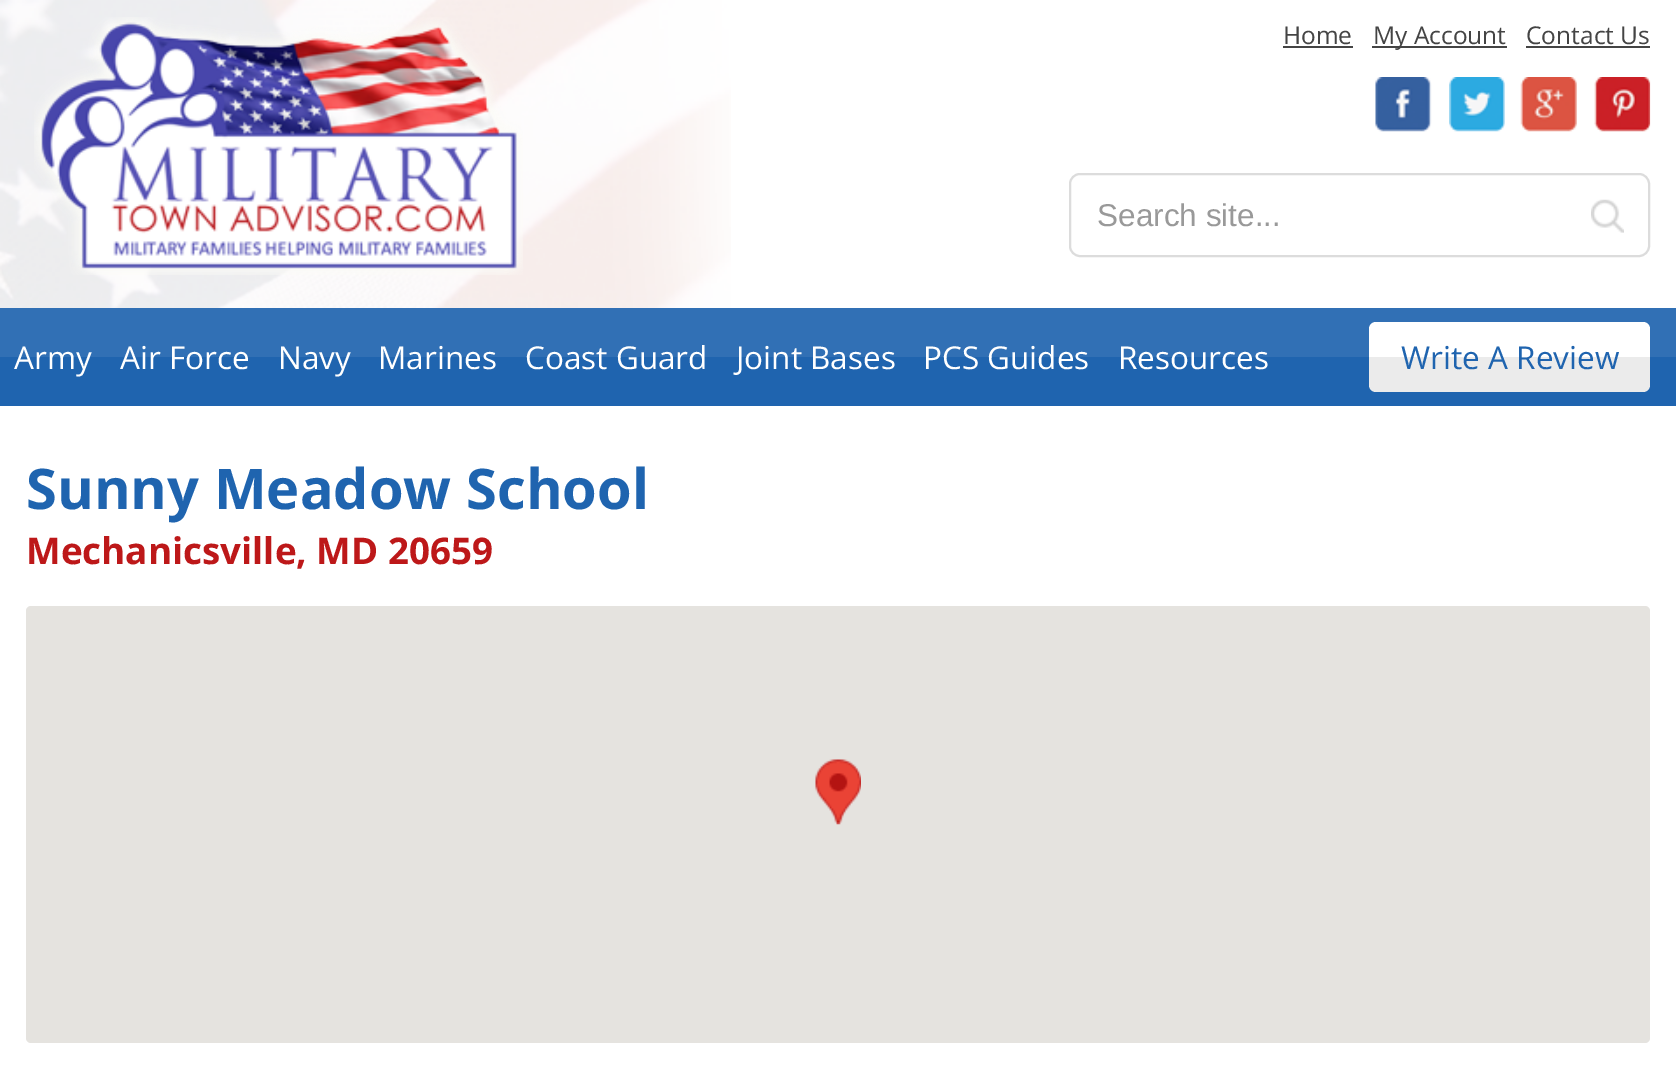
%!PS
<< /PageSize [1676 1072] >> setpagedevice
/mt/moveto load def
/li/lineto load def
/ct/curveto load def
/cp/closepath load def
/fl/fill load def
/st/stroke load def
/lw/setlinewidth load def
/co { dup -16 bitshift 255 div exch dup -8 bitshift 255 and 255 div exch 255 and 255 div setrgbcolor } def
/fn { [ exch dup neg 0 0 3 -1 roll 0 0 ] selectfont } def
/tx { co fn moveto show } def
/bx { co rectfill } def
/rr { 5 dict begin { /r /h /w /y /x } { exch def } forall
  x r add y moveto x w add y 2 copy h add r arct x w add y h add x 1 index r arct
  x y h add x y r arct x y 2 copy exch w add exch r arct closepath end } def
/im { 5 dict begin { /h /w /y /x /name } { exch def } forall
  gsave x y translate w h scale
  w h 8 [w 0 0 h 0 0] name (r) file false 3 colorimage grestore end } def
0 1072 translate 1 -1 scale
4 setmiterlimit
0 0 1676 1072 16#FFFFFF bx
(media/1.raw) 0 0 731 308 im
(media/2.raw) 34 17 489 258 im
1283 46 70 2 16#444444 bx
1372 46 135 2 16#444444 bx
1526 46 124 2 16#444444 bx
(media/3.raw) 1375 77 57 55 im
(media/4.raw) 1449 77 56 55 im
(media/5.raw) 1520 77 57 55 im
(media/6.raw) 1594 77 57 55 im
16#DCDCDC co
2 lw
1070 174 579 82 10 rr st
(media/7.raw) 1591 199 33 34 im
0 308 1676 49 16#3170B5 bx
0 357 1676 49 16#1F64AF bx
16#FFFFFF co
1376 322 mt 1643 322 li 1647 322 1650 325 1650 329 ct 1650 357 li 1369 357 li 1369 329 li 1369 325 1372 322 1376 322 ct cp fl
16#EBEBEB co
1369 357 mt 1650 357 li 1650 385 li 1650 389 1647 392 1643 392 ct 1376 392 li 1372 392 1369 389 1369 385 ct cp fl
16#E5E3DF co
26 606 1624 437 5 rr fl
(media/8.raw) 815 759 46 66 im
(Home) 1283 44 /OpenSans-Regular 24.5 16#444444 tx
(My Account) 1373 44 /OpenSans-Regular 24.5 16#444444 tx
(Contact Us) 1526 44 /OpenSans-Regular 24.5 16#444444 tx
(Search site...) 1097 226 /LiberationSans-Regular 31.5 16#999999 tx
(Army) 14 369 /OpenSans-Regular 31.5 16#FFFFFF tx
(Air Force) 120 369 /OpenSans-Regular 31.5 16#FFFFFF tx
(Navy) 278 369 /OpenSans-Regular 31.5 16#FFFFFF tx
(Marines) 378 369 /OpenSans-Regular 31.5 16#FFFFFF tx
(Coast Guard) 525 369 /OpenSans-Regular 31.5 16#FFFFFF tx
(Joint Bases) 736 369 /OpenSans-Regular 31.5 16#FFFFFF tx
(PCS Guides) 923 369 /OpenSans-Regular 31.5 16#FFFFFF tx
(Resources) 1118 369 /OpenSans-Regular 31.5 16#FFFFFF tx
(Write A Review) 1401 369 /OpenSans-Regular 31.5 16#1F64AF tx
(Sunny Meadow School) 26 509 /OpenSans-Bold 56 16#1F64AF tx
(Mechanicsville, MD 20659) 26 564 /OpenSans-Bold 36.75 16#BD1819 tx
showpage
